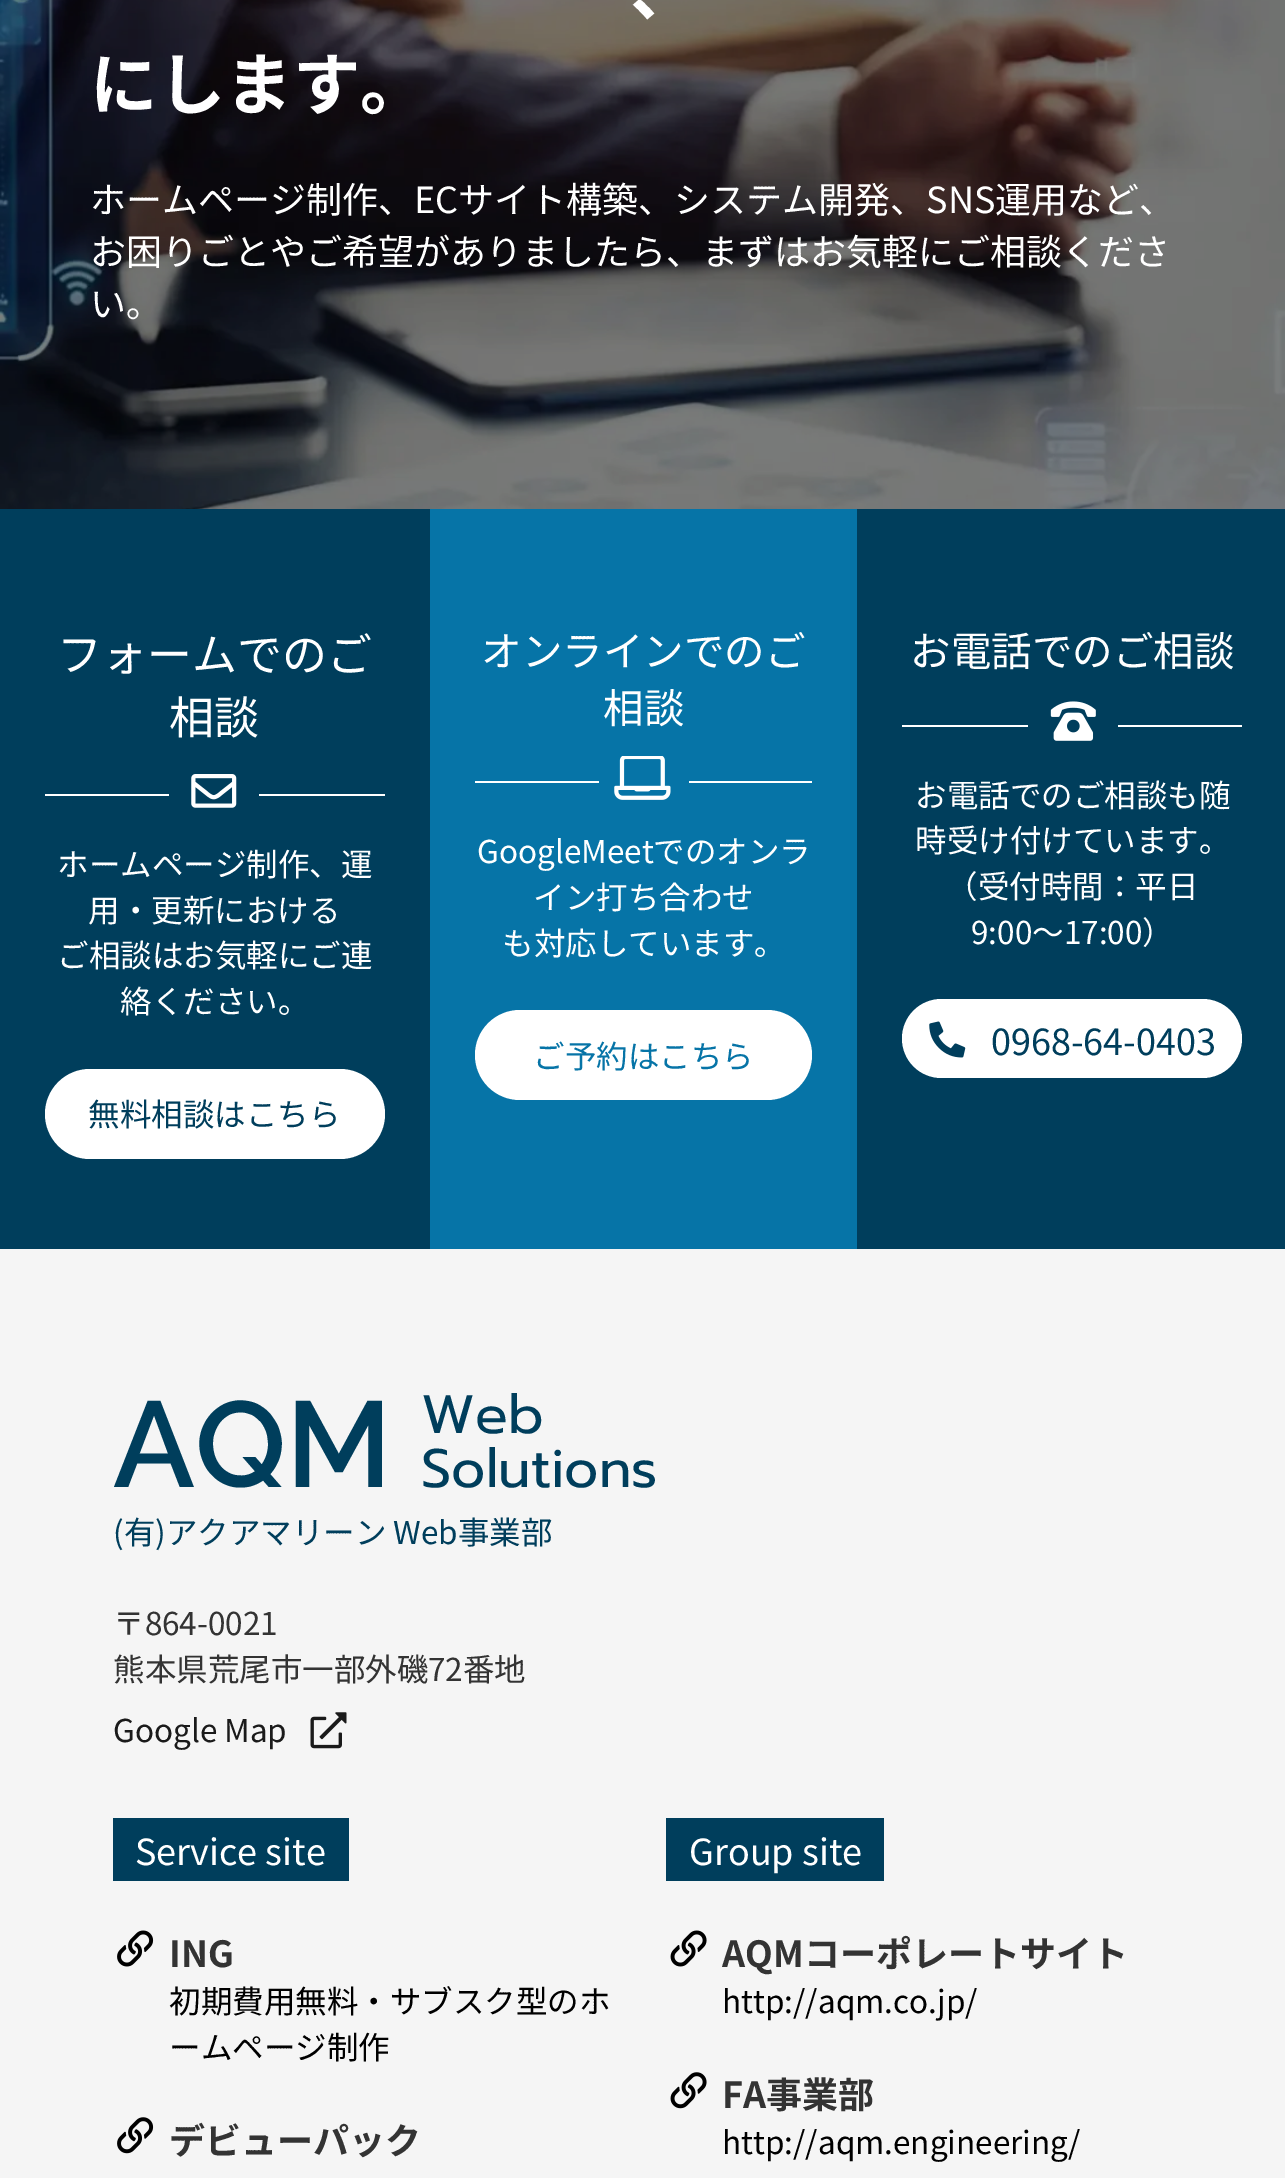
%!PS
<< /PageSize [1285 2178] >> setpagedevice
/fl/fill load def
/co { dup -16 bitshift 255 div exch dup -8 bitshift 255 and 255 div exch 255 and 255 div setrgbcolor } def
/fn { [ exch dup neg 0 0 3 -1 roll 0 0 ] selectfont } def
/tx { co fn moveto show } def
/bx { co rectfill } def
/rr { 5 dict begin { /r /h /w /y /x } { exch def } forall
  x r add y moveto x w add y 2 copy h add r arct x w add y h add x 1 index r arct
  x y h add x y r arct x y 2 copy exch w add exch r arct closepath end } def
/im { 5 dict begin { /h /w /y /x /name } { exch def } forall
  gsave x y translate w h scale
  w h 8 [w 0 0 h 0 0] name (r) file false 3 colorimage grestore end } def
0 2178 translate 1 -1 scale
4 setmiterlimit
0 0 1285 2178 16#FFFFFF bx
(media/1.raw) 0 0 1285 509 im
0 509 430 740 16#003E5C bx
45 794 124 2 16#FFFFFF bx
(media/2.raw) 191 774 46 34 im
259 794 126 2 16#FFFFFF bx
45 1069 340 90 45 rr fl
430 509 427 740 16#0674A7 bx
475 781 124 2 16#FFFFFF bx
(media/3.raw) 614 756 57 44 im
689 781 123 2 16#FFFFFF bx
475 1010 337 90 45 rr fl
857 509 428 740 16#003E5C bx
902 725 126 2 16#FFFFFF bx
(media/4.raw) 1050 701 46 40 im
1118 725 124 2 16#FFFFFF bx
902 999 340 79 39.5 rr fl
(media/5.raw) 929 1021 37 37 im
0 1249 1285 929 16#F5F5F5 bx
(media/6.raw) 310 1712 37 37 im
113 1818 236 63 16#003E5C bx
(media/7.raw) 117 1930 37 37 im
(media/8.raw) 117 2117 37 37 im
666 1818 218 63 16#003E5C bx
(media/9.raw) 670 1930 37 37 im
(media/10.raw) 670 2072 37 37 im
(、) 630 15 /NotoSansJP-Bold 67.5 16#FFFFFF tx
(にします。) 90 109 /NotoSansJP-Bold 67.5 16#FFFFFF tx
(ホームページ制作、ECサイト構築、システム開発、SNS運用など、) 90 213 /NotoSansJP-Thin 36 16#FFFFFF tx
(お困りごとやご希望がありましたら、まずはお気軽にご相談くださ) 90 265 /NotoSansJP-Thin 36 16#FFFFFF tx
(い。) 90 317 /NotoSansJP-Thin 36 16#FFFFFF tx
(フォームでのご) 57 671 /NotoSansJP-Thin 45 16#FFFFFF tx
(相談) 169 734 /NotoSansJP-Thin 45 16#FFFFFF tx
(ホームページ制作、運) 57 876 /NotoSansJP-Thin 31.5 16#FFFFFF tx
(用・更新における) 88 922 /NotoSansJP-Thin 31.5 16#FFFFFF tx
(ご相談はお気軽にご連) 57 967 /NotoSansJP-Thin 31.5 16#FFFFFF tx
(絡ください。) 120 1013 /NotoSansJP-Thin 31.5 16#FFFFFF tx
(無料相談はこちら) 88 1126 /NotoSansJP-Thin 31.5 16#003E5C tx
(オンラインでのご) 481 666 /NotoSansJP-Thin 40.5 16#FFFFFF tx
(相談) 603 723 /NotoSansJP-Thin 40.5 16#FFFFFF tx
(GoogleMeetでのオンラ) 477 863 /NotoSansJP-Thin 31.5 16#FFFFFF tx
(イン打ち合わせ) 533 909 /NotoSansJP-Thin 31.5 16#FFFFFF tx
(も対応しています。) 502 955 /NotoSansJP-Thin 31.5 16#FFFFFF tx
(ご予約はこちら) 533 1068 /NotoSansJP-Thin 31.5 16#0674A7 tx
(お電話でのご相談) 910 666 /NotoSansJP-Thin 40.5 16#FFFFFF tx
(お電話でのご相談も随) 915 807 /NotoSansJP-Thin 31.5 16#FFFFFF tx
(時受け付けています。) 915 852 /NotoSansJP-Thin 31.5 16#FFFFFF tx
(（受付時間：平日) 946 898 /NotoSansJP-Thin 31.5 16#FFFFFF tx
(9:00〜17:00）) 971 944 /NotoSansJP-Thin 31.5 16#FFFFFF tx
(0968-64-0403) 991 1055 /NotoSansJP-Thin 36 16#003E5C tx
(AQM) 113 1487 /Raleway-SemiBold 121.5 16#003E5C tx
(Web) 421 1433 /Prompt-Regular 54 16#003E5C tx
(Solutions) 421 1487 /Prompt-Regular 54 16#003E5C tx
(\(有\)アクアマリーン Web事業部) 113 1544 /NotoSansJP-Thin 31.5 16#003E5C tx
(〒864-0021) 113 1635 /NotoSansJP-Thin 31.5 16#333333 tx
(熊本県荒尾市一部外磯72番地) 113 1681 /NotoSansJP-Thin 31.5 16#333333 tx
(Google Map) 113 1742 /NotoSansJP-Thin 31.5 16#1A1A1A tx
(Service site) 135 1865 /NotoSansJP-Thin 36 16#FFFFFF tx
(ING) 169 1967 /NotoSansJP-Bold 36 16#333333 tx
(初期費用無料・サブスク型のホ) 169 2013 /NotoSansJP-Thin 31.5 16#000000 tx
(ームページ制作) 169 2059 /NotoSansJP-Thin 31.5 16#000000 tx
(デビューパック) 169 2154 /NotoSansJP-Bold 36 16#333333 tx
(Group site) 689 1865 /NotoSansJP-Thin 36 16#FFFFFF tx
(AQMコーポレートサイト) 722 1967 /NotoSansJP-Bold 36 16#333333 tx
(http://aqm.co.jp/) 722 2013 /NotoSansJP-Thin 31.5 16#000000 tx
(FA事業部) 722 2108 /NotoSansJP-Bold 36 16#333333 tx
(http://aqm.engineering/) 722 2154 /NotoSansJP-Thin 31.5 16#000000 tx
showpage
